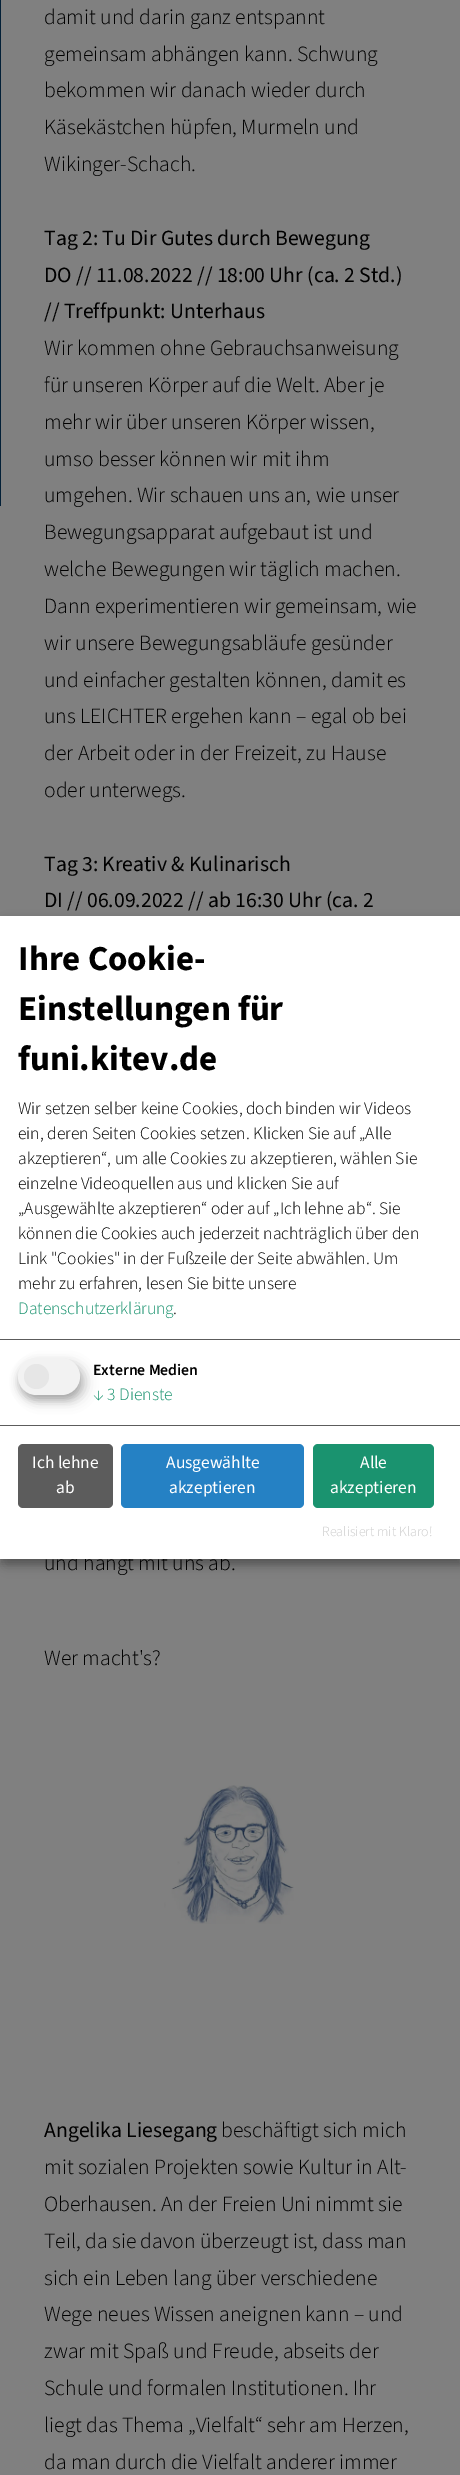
%!PS
<< /PageSize [460 2475] /PageUsesTransparency true >> setpagedevice
/fl/fill load def
/co { dup -16 bitshift 255 div exch dup -8 bitshift 255 and 255 div exch 255 and 255 div setrgbcolor } def
/fn { [ exch dup neg 0 0 3 -1 roll 0 0 ] selectfont } def
/tx { co fn moveto show } def
/bx { co rectfill } def
/al { dup .setfillconstantalpha .setstrokeconstantalpha } def
/ci { newpath 0 360 arc closepath } def
/rr { 5 dict begin { /r /h /w /y /x } { exch def } forall
  x r add y moveto x w add y 2 copy h add r arct x w add y h add x 1 index r arct
  x y h add x y r arct x y 2 copy exch w add exch r arct closepath end } def
/sh { 12 dict begin { /a /b /q /h /w /y /x } { exch def } forall gsave /was 0 def
  9 -2 -9 { dup b mul 4 div /e exch def 1 sub .425 mul 2.718 exch exp 1 add a .99 .min exch div /now exch def
    1 1 now sub 1 was sub div sub al /was now def
    w h .min e 2 mul add 0 gt { x e sub y e sub w e 2 mul add h e 2 mul add
      q e add b .6 mul add w h .min 2 div e add .min 0 .max rr fill } if } for grestore end } def
/im { 5 dict begin { /h /w /y /x /name } { exch def } forall
  gsave x y translate w h scale
  w h 8 [w 0 0 h 0 0] name (r) file false 3 colorimage grestore end } def
0 .pushpdf14devicefilter
0 2475 translate 1 -1 scale
4 setmiterlimit
0 0 460 2475 16#808080 bx
0 0 1 506 16#032037 bx
(media/1.raw) 164 1785 130 139 im
16#000000 co
6 923 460 642 0 6 .19 sh
0 921 460 643 0 4 .2 sh
(damit und darin ganz entspannt) 44 24 /SourceSans3-Light 21.7 16#000000 tx
(gemeinsam abhängen kann. Schwung) 44 61 /SourceSans3-Light 21.7 16#000000 tx
(bekommen wir danach wieder durch) 44 97 /SourceSans3-Light 21.7 16#000000 tx
(Käsekästchen hüpfen, Murmeln und) 44 134 /SourceSans3-Light 21.7 16#000000 tx
(Wikinger-Schach.) 44 171 /SourceSans3-Light 21.7 16#000000 tx
(Tag 2: Tu Dir Gutes durch Bewegung) 44 245 /SourceSans3-Regular 21.7 16#000000 tx
(DO // 11.08.2022 // 18:00 Uhr \(ca. 2 Std.\)) 44 282 /SourceSans3-Regular 21.7 16#000000 tx
(// Treffpunkt: Unterhaus) 44 318 /SourceSans3-Regular 21.7 16#000000 tx
(Wir kommen ohne Gebrauchsanweisung) 44 355 /SourceSans3-Light 21.7 16#000000 tx
(für unseren Körper auf die Welt. Aber je) 44 392 /SourceSans3-Light 21.7 16#000000 tx
(mehr wir über unseren Körper wissen,) 44 429 /SourceSans3-Light 21.7 16#000000 tx
(umso besser können wir mit ihm) 44 466 /SourceSans3-Light 21.7 16#000000 tx
(umgehen. Wir schauen uns an, wie unser) 44 502 /SourceSans3-Light 21.7 16#000000 tx
(Bewegungsapparat aufgebaut ist und) 44 539 /SourceSans3-Light 21.7 16#000000 tx
(welche Bewegungen wir täglich machen.) 44 576 /SourceSans3-Light 21.7 16#000000 tx
(Dann experimentieren wir gemeinsam, wie) 44 613 /SourceSans3-Light 21.7 16#000000 tx
(wir unsere Bewegungsabläufe gesünder) 44 650 /SourceSans3-Light 21.7 16#000000 tx
(und einfacher gestalten können, damit es) 44 687 /SourceSans3-Light 21.7 16#000000 tx
(uns LEICHTER ergehen kann – egal ob bei) 44 723 /SourceSans3-Light 21.7 16#000000 tx
(der Arbeit oder in der Freizeit, zu Hause) 44 760 /SourceSans3-Light 21.7 16#000000 tx
(oder unterwegs.) 44 797 /SourceSans3-Light 21.7 16#000000 tx
(Tag 3: Kreativ & Kulinarisch) 44 871 /SourceSans3-Regular 21.7 16#000000 tx
(DI // 06.09.2022 // ab 16:30 Uhr \(ca. 2) 44 907 /SourceSans3-Regular 21.7 16#000000 tx
(und hängt mit uns ab.) 44 1570 /SourceSans3-Light 21.7 16#000000 tx
(Wer macht's?) 44 1665 /SourceSans3-Light 21.7 16#000000 tx
(Angelika Liesegang) 44 2137 /SourceSans3-Regular 21.7 16#000000 tx
(beschäftigt sich mich) 221 2137 /SourceSans3-Light 21.7 16#000000 tx
(mit sozialen Projekten sowie Kultur in Alt-) 44 2174 /SourceSans3-Light 21.7 16#000000 tx
(Oberhausen. An der Freien Uni nimmt sie) 44 2211 /SourceSans3-Light 21.7 16#000000 tx
(Teil, da sie davon überzeugt ist, dass man) 44 2248 /SourceSans3-Light 21.7 16#000000 tx
(sich ein Leben lang über verschiedene) 44 2285 /SourceSans3-Light 21.7 16#000000 tx
(Wege neues Wissen aneignen kann – und) 44 2321 /SourceSans3-Light 21.7 16#000000 tx
(zwar mit Spaß und Freude, abseits der) 44 2358 /SourceSans3-Light 21.7 16#000000 tx
(Schule und formalen Institutionen. Ihr) 44 2395 /SourceSans3-Light 21.7 16#000000 tx
(liegt das Thema „Vielfalt“ sehr am Herzen,) 44 2432 /SourceSans3-Light 21.7 16#000000 tx
(da man durch die Vielfalt anderer immer) 44 2469 /SourceSans3-Light 21.7 16#000000 tx
0 916 460 643 16#FFFFFF bx
0 1339 460 1 16#5C5C5C bx
(Ihre Cookie-) 18 970 /SourceSans3-Bold 35 16#000000 tx
(Einstellungen für) 18 1020 /SourceSans3-Bold 35 16#000000 tx
(funi.kitev.de) 18 1070 /SourceSans3-Bold 35 16#000000 tx
(Wir setzen selber keine Cookies, doch binden wir Videos) 18 1114 /SourceSans3-Light 17.5 16#000000 tx
(ein, deren Seiten Cookies setzen. Klicken Sie auf „Alle) 18 1139 /SourceSans3-Light 17.5 16#000000 tx
(akzeptieren“, um alle Cookies zu akzeptieren, wählen Sie) 18 1164 /SourceSans3-Light 17.5 16#000000 tx
(einzelne Videoquellen aus und klicken Sie auf) 18 1189 /SourceSans3-Light 17.5 16#000000 tx
(„Ausgewählte akzeptieren“ oder auf „Ich lehne ab“. Sie) 18 1214 /SourceSans3-Light 17.5 16#000000 tx
(können die Cookies auch jederzeit nachträglich über den) 18 1239 /SourceSans3-Light 17.5 16#000000 tx
(Link "Cookies" in der Fußzeile der Seite abwählen. Um) 18 1264 /SourceSans3-Light 17.5 16#000000 tx
(mehr zu erfahren, lesen Sie bitte unsere) 18 1289 /SourceSans3-Light 17.5 16#000000 tx
(Datenschutzerklärung) 18 1314 /SourceSans3-Light 17.5 16#1A936F tx
(.) 173 1314 /SourceSans3-Light 17.5 16#000000 tx
24 1364 62 37 18.5 6 .19 sh
18 1363 62 37 18.5 4 .2 sh
16#F2F2F2 co
18 1358 62 37 18.5 rr fl
16#E6E6E6 co
36.5 1376.5 12.5 ci fl
(Externe Medien) 93 1375 /SourceSans3-SemiBold 15.75 16#000000 tx
(↓ 3 Dienste) 93 1400 /SourceSans3-Light 17.5 16#1A936F tx
0 1425 460 1 16#5C5C5C bx
18 1444 95 64 5 rr fl
(Ich lehne) 32 1468 /SourceSans3-Regular 17.5 16#FFFFFF tx
(ab) 56 1493 /SourceSans3-Regular 17.5 16#FFFFFF tx
16#2581C4 co
121 1444 183 64 5 rr fl
(Ausgewählte) 166 1468 /SourceSans3-Regular 17.5 16#FFFFFF tx
(akzeptieren) 169 1493 /SourceSans3-Regular 17.5 16#FFFFFF tx
16#1A936F co
313 1444 121 64 5 rr fl
(Alle) 360 1468 /SourceSans3-Regular 17.5 16#FFFFFF tx
(akzeptieren) 330 1493 /SourceSans3-Regular 17.5 16#FFFFFF tx
(Realisiert mit Klaro!) 322 1536 /SourceSans3-Light 14 16#CCCCCC tx
.poppdf14devicefilter showpage
